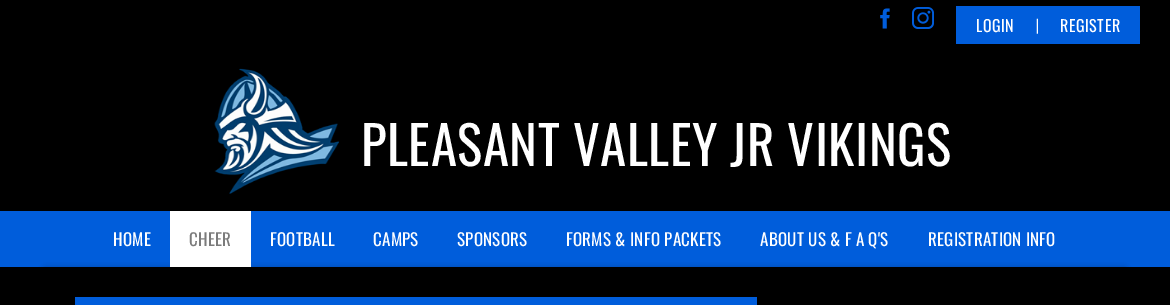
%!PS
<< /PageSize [1170 305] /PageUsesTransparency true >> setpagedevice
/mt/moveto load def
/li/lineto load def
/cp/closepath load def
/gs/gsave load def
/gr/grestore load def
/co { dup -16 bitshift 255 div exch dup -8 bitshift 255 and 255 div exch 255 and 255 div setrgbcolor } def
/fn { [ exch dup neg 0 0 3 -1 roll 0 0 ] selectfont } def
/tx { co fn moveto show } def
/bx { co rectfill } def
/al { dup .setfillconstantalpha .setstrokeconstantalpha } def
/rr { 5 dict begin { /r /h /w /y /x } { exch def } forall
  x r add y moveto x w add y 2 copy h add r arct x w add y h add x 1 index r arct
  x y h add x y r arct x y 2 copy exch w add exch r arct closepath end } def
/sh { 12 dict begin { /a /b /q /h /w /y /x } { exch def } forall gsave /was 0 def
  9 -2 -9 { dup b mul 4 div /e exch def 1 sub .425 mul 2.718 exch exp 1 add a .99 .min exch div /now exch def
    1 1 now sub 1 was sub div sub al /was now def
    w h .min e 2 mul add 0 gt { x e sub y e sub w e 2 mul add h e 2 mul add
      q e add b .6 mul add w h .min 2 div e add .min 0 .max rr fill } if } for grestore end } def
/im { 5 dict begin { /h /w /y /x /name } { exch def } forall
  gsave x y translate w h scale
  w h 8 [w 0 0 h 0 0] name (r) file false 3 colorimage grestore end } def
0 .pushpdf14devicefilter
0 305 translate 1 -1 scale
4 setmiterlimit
0 0 1170 305 16#000000 bx
(media/1.raw) 880 8 10 21 im
(media/2.raw) 912 7 22 22 im
956 6 184 38 16#005DDB bx
(media/3.raw) 214 68 125 126 im
0 211 1170 56 16#005DDB bx
gs
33 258 mt 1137 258 li 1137 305 li 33 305 li cp 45 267 mt 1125 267 li 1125 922 li 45 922 li cp eoclip newpath
16#000000 co
45 270 1080 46 0 3.5 .61 sh
gr
170 211 81 56 16#FFFFFF bx
75 297 682 8 16#005DDB bx
/Oswald-Regular 16 fn
16#FFFFFF co
976 32 mt .5 0 (LOGIN) ashow
(|) 1035 31 /Lato-Regular 16 16#FFFFFF tx
/Oswald-Regular 16 fn
1060 32 mt .5 0 (REGISTER) ashow
/Oswald-Regular 53 fn
361 166 mt .5 0 (PLEASANT VALLEY JR VIKINGS) ashow
/Oswald-Regular 17 fn
113 246 mt .25 0 (HOME) ashow
16#7B7B7B co
189 246 mt .25 0 (CHEER) ashow
16#FFFFFF co
270 246 mt .25 0 (FOOTBALL) ashow
373 246 mt .25 0 (CAMPS) ashow
457 246 mt .25 0 (SPONSORS) ashow
566 246 mt .25 0 (FORMS & INFO PACKETS) ashow
760 246 mt .25 0 (ABOUT US & F A Q'S) ashow
928 246 mt .25 0 (REGISTRATION INFO) ashow
.poppdf14devicefilter showpage
